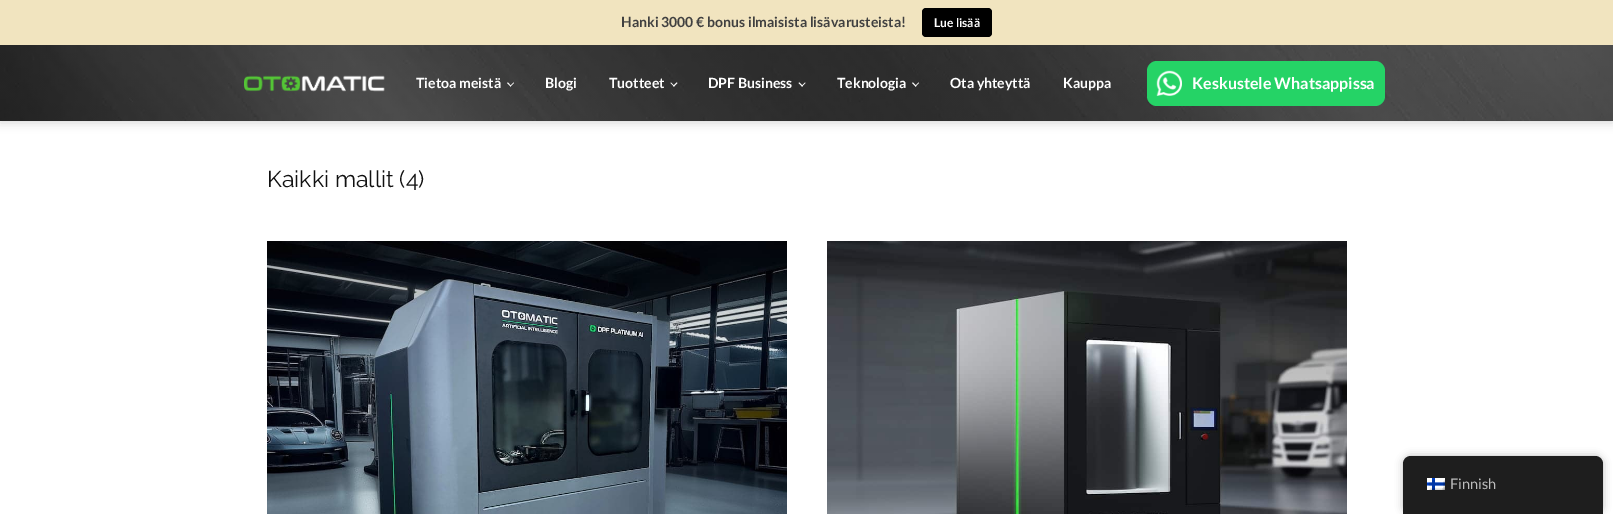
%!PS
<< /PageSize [1613 514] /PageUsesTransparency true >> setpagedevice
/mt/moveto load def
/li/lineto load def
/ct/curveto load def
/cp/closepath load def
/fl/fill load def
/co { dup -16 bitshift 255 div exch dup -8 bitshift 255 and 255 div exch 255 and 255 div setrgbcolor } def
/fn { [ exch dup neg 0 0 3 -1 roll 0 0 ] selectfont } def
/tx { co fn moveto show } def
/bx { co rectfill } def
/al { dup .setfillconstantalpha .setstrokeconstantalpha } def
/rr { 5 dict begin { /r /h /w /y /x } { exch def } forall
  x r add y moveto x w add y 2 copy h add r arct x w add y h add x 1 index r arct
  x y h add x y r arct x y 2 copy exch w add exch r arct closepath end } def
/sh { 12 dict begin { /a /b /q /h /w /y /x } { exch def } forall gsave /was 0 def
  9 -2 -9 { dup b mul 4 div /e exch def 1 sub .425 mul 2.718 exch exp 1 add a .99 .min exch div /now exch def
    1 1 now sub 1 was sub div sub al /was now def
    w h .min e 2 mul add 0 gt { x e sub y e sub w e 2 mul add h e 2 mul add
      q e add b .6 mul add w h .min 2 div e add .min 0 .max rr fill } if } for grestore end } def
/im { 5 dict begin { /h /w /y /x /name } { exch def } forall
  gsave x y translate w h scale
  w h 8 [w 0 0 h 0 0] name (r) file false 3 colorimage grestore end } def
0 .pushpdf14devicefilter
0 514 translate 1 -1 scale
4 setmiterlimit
0 0 1613 514 16#FFFFFF bx
16#000000 co
0 2 1613 121 0 5 .15 sh
0 0 1613 45 16#F1E4BF bx
16#000000 co
922 8 70 29 4 rr fl
(media/1.raw) 0 45 1613 76 im
(media/2.raw) 244 75 141 17 im
16#FFFFFF co
514 83 mt 510.5 86.5 li 510 86 li 513.5 82.5 li cp fl
511 86 mt 510.5 86.5 li 507 83 li 508 82.5 li cp fl
677.5 83 mt 674 86.5 li 673 86 li 676.5 82.5 li cp fl
674.5 86 mt 674 86.5 li 670.5 83 li 671 82.5 li cp fl
805.5 83 mt 802 86.5 li 801.5 86 li 805 82.5 li cp fl
803 86 mt 802 86.5 li 798.5 83 li 799.5 82.5 li cp fl
919 83 mt 915.5 86.5 li 915 86 li 918.5 82.5 li cp fl
916.5 86 mt 915.5 86.5 li 912 83 li 913 82.5 li cp fl
16#25D366 co
1147 61 238 45 10 rr fl
(media/3.raw) 1156 70 26 26 im
(media/4.raw) 267 241 520 273 im
(media/5.raw) 827 241 520 273 im
16#000000 co
1403 456 200 58 8 4 .25 sh
16#1E1E1E co
1411 456 mt 1595 456 li 1599.5 456 1603 459.5 1603 464 ct 1603 514 li 1403 514 li 1403 464 li 1403 459.5 1406.5 456 1411 456 ct cp fl
(media/6.raw) 1427 478 18 12 im
(Hanki 3000 € bonus ilmaisista lisävarusteista!) 621 27 /Lato-Bold 14 16#404040 tx
(Lue lisää) 934 27 /Lato-Bold 12 16#FFFFFF tx
(Tietoa meistä) 416 88 /Lato-Bold 14 16#FFFFFF tx
(Blogi) 545 88 /Lato-Bold 14 16#FFFFFF tx
(Tuotteet) 609 88 /Lato-Bold 14 16#FFFFFF tx
(DPF Business) 708 88 /Lato-Bold 14 16#FFFFFF tx
(Teknologia) 837 88 /Lato-Bold 14 16#FFFFFF tx
(Ota yhteyttä) 950 88 /Lato-Bold 14 16#FFFFFF tx
(Kauppa) 1063 88 /Lato-Bold 14 16#FFFFFF tx
(Keskustele Whatsappissa) 1192 89 /Lato-Bold 16 16#FFFFFF tx
(Kaikki mallit \(4\)) 267 187 /Raleway-Regular 23 16#111111 tx
(Finnish) 1450 489 /Lato-Regular 14.5 16#BDBDBD tx
.poppdf14devicefilter showpage
